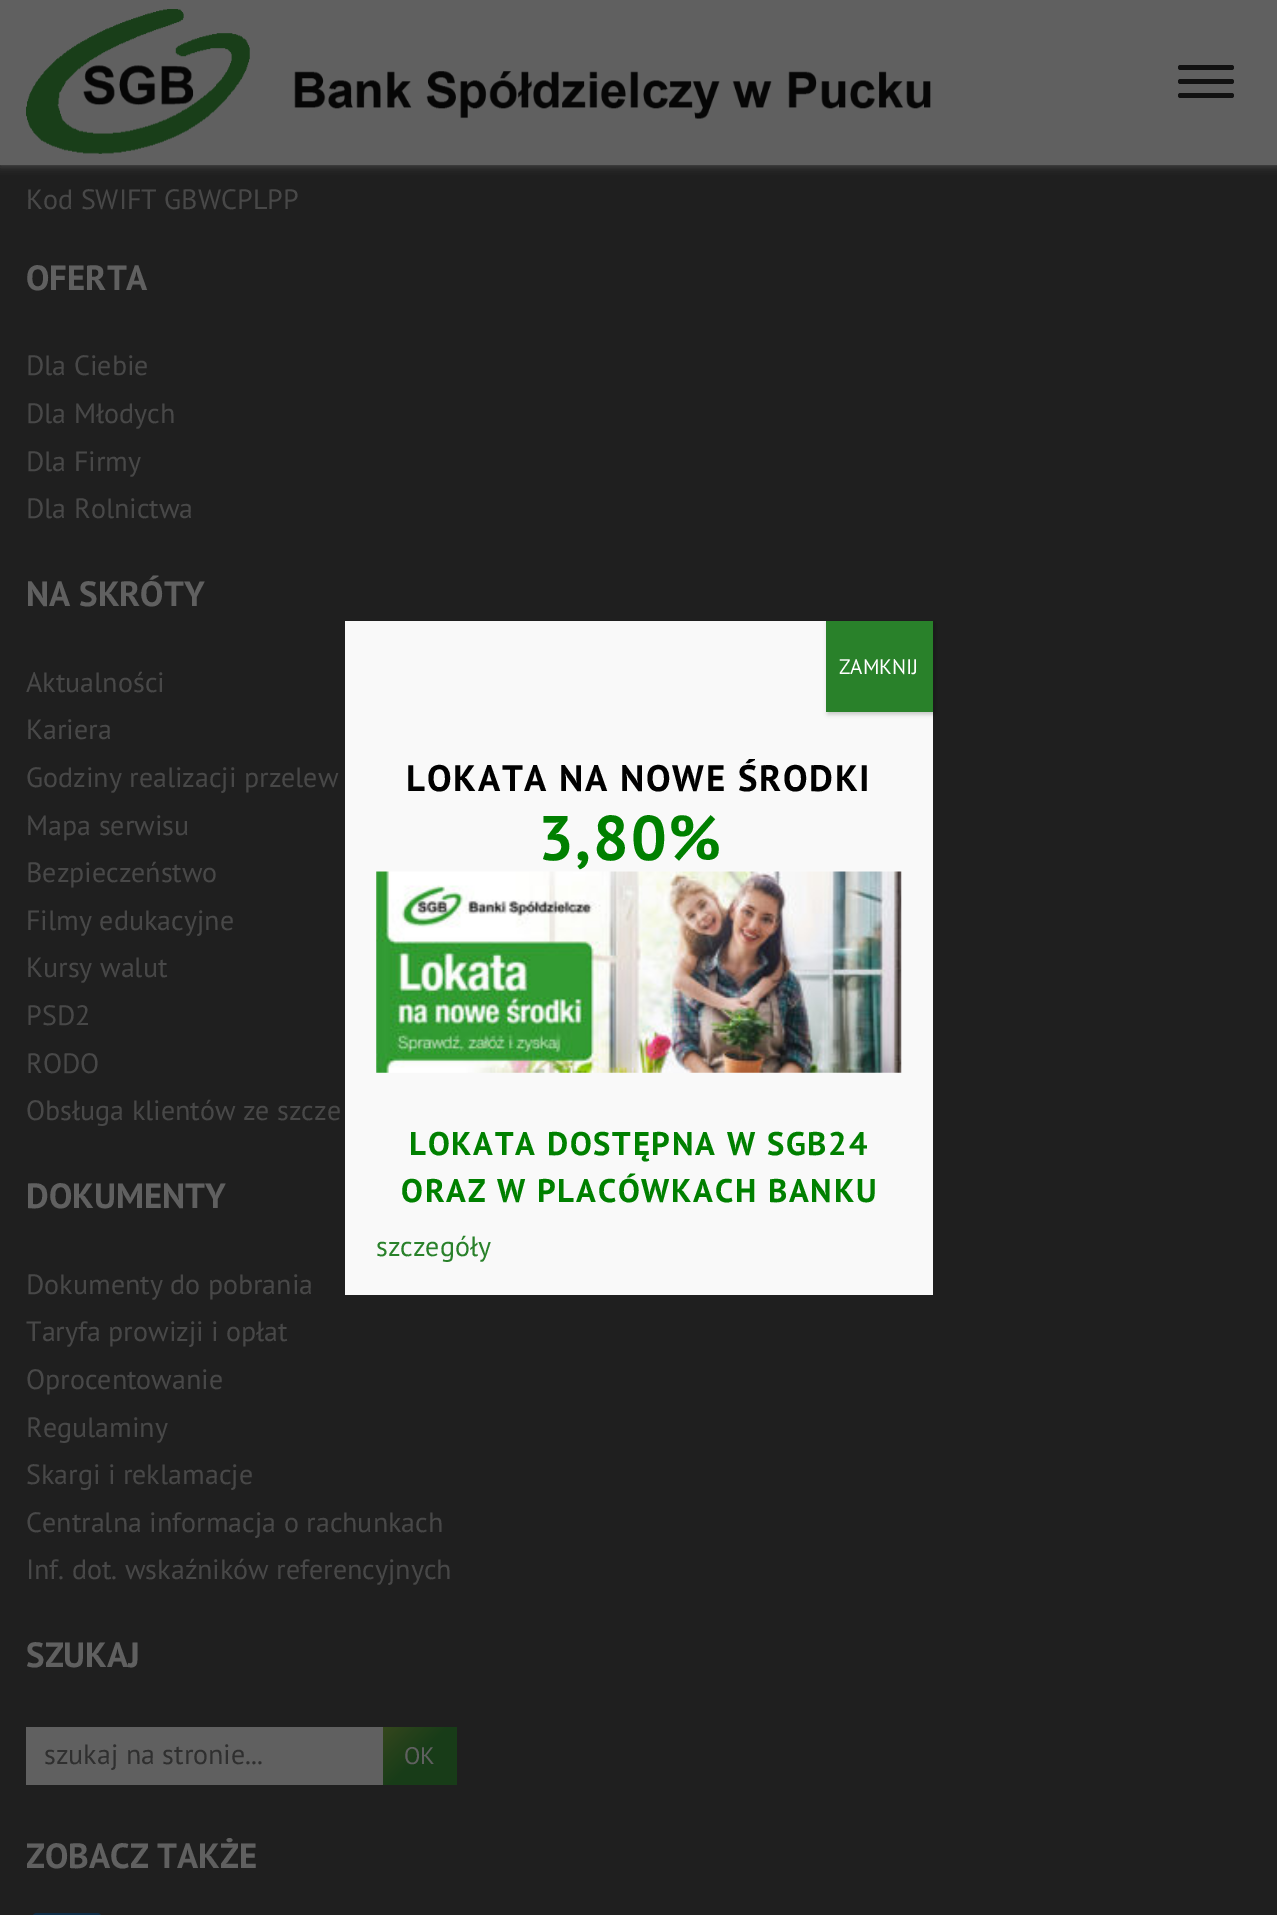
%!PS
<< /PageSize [1277 1915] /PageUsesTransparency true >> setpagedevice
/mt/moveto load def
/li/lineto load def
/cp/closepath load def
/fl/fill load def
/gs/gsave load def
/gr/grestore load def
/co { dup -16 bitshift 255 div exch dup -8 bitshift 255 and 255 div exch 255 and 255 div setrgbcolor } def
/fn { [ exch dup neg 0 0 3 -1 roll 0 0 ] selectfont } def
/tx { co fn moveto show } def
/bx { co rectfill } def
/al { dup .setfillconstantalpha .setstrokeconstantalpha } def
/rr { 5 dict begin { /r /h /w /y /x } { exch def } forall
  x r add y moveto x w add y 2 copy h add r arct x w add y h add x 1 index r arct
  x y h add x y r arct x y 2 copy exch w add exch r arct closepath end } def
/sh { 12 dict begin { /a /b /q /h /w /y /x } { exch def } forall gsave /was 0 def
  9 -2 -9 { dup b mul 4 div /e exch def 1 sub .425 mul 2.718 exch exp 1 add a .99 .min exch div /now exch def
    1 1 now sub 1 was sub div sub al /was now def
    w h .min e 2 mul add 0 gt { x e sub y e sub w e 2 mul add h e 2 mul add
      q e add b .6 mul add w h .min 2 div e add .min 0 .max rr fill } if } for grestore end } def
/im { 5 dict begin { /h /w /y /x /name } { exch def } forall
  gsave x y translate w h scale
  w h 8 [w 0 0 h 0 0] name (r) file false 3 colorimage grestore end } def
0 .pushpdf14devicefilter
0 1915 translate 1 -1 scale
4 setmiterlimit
0 0 1277 1915 16#1F1F1F bx
16#585858 co
0 0 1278 165 0 4.5 1 sh
0 0 1277 165 16#606060 bx
(media/1.raw) 26 9 905 145 im
16#111111 co
1178 65 56 5 2.5 rr fl
1178 79 56 5 2.5 rr fl
1178 93 56 5 2.5 rr fl
26 1727 357 58 16#606060 bx
gs 383 1727 mt 457 1727 li 457 1785 li 383 1785 li cp clip newpath
<< /ShadingType 2 /ColorSpace /DeviceRGB /Coords [387 1723 453 1789] /Extend [true true] /Function << /FunctionType 3 /Domain [0 1] /Functions [<< /FunctionType 2 /Domain [0 1] /C0 [.208 .278 .114] /C1 [.094 .235 .094] /N 1 >> << /FunctionType 2 /Domain [0 1] /C0 [.094 .235 .094] /C1 [.094 .235 .094] /N 1 >>] /Bounds [.5] /Encode [0 1 0 1] >> >> shfill gr
16#112F49 co
32 1913 70 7 5 rr fl
345 621 588 674 16#F9F9F9 bx
16#020202 co
828 623 107 91 0 2.5 .23 sh
826 621 107 91 16#29812A bx
(media/2.raw) 376 871 526 202 im
(Kod SWIFT GBWCPLPP) 26 209 /PTSans-Regular 28 16#484848 tx
(OFERTA) 26 290 /PTSans-Bold 35 16#606060 tx
(Dla Ciebie) 26 375 /PTSans-Regular 28 16#484848 tx
(Dla Młodych) 26 423 /PTSans-Regular 28 16#484848 tx
(Dla Firmy) 26 471 /PTSans-Regular 28 16#484848 tx
(Dla Rolnictwa) 26 518 /PTSans-Regular 28 16#484848 tx
(NA SKRÓTY) 26 606 /PTSans-Bold 35 16#606060 tx
(Aktualności) 26 692 /PTSans-Regular 28 16#484848 tx
(Kariera) 26 739 /PTSans-Regular 28 16#484848 tx
(Godziny realizacji przelew) 26 787 /PTSans-Regular 28 16#484848 tx
(Mapa serwisu) 26 835 /PTSans-Regular 28 16#484848 tx
(Bezpieczeństwo) 26 882 /PTSans-Regular 28 16#484848 tx
(Filmy edukacyjne) 26 930 /PTSans-Regular 28 16#484848 tx
(Kursy walut) 26 977 /PTSans-Regular 28 16#484848 tx
(PSD2) 26 1025 /PTSans-Regular 28 16#484848 tx
(RODO) 26 1073 /PTSans-Regular 28 16#484848 tx
(Obsługa klientów ze szcze) 26 1120 /PTSans-Regular 28 16#484848 tx
(DOKUMENTY) 26 1208 /PTSans-Bold 35 16#606060 tx
(Dokumenty do pobrania) 26 1294 /PTSans-Regular 28 16#484848 tx
(Taryfa prowizji i opłat) 26 1341 /PTSans-Regular 28 16#484848 tx
(Oprocentowanie) 26 1389 /PTSans-Regular 28 16#484848 tx
(Regulaminy) 26 1437 /PTSans-Regular 28 16#484848 tx
(Skargi i reklamacje) 26 1484 /PTSans-Regular 28 16#484848 tx
(Centralna informacja o rachunkach) 26 1532 /PTSans-Regular 28 16#484848 tx
(Inf. dot. wskaźników referencyjnych) 26 1579 /PTSans-Regular 28 16#484848 tx
(SZUKAJ) 26 1667 /PTSans-Bold 35 16#606060 tx
(szukaj na stronie...) 44 1764 /PTSans-Regular 28 16#2F2F2F tx
(OK) 404 1764 /PTSans-Regular 24 16#606060 tx
(ZOBACZ TAKŻE) 26 1868 /PTSans-Bold 35 16#606060 tx
(ZAMKNIJ) 839 674 /PTSans-Regular 21 16#FFFFFF tx
/PTSans-Bold 36.75 fn
16#000000 co
406 791 mt 1.75 0 (LOKATA NA NOWE ŚRODKI) ashow
/PTSans-Bold 63 fn
16#008000 co
538 860 mt 1.75 0 (3,80%) ashow
/PTSans-Bold 32.7 fn
409 1155 mt 1.75 0 (LOKATA DOSTĘPNA W SGB24) ashow
401 1202 mt 1.75 0 (ORAZ W PLACÓWKACH BANKU) ashow
(szczegóły) 376 1256 /PTSans-Regular 28 16#29812A tx
.poppdf14devicefilter showpage
